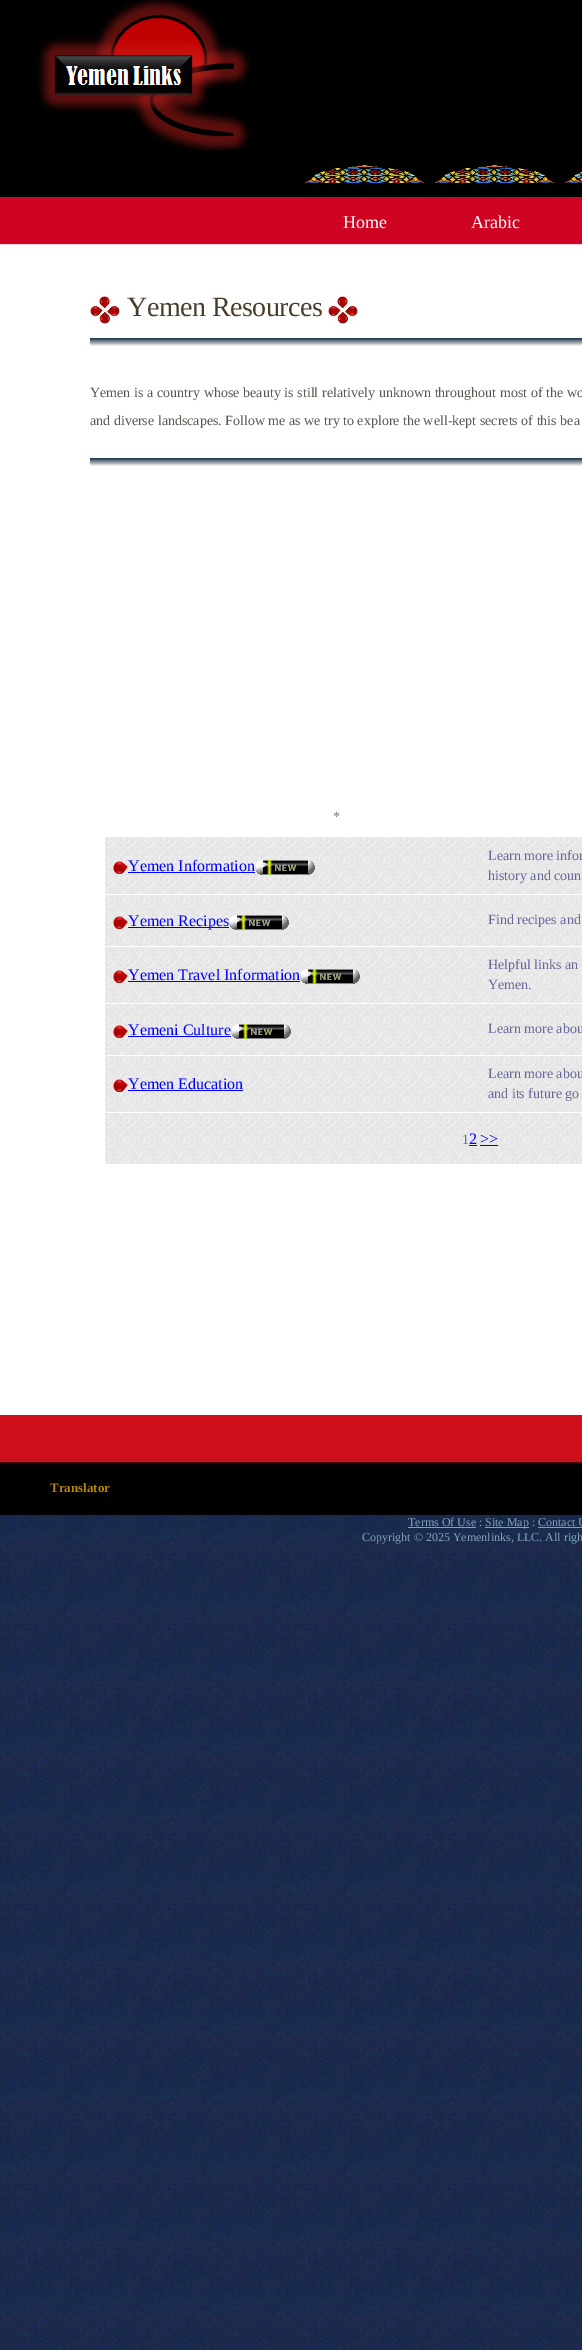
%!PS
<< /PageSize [582 2350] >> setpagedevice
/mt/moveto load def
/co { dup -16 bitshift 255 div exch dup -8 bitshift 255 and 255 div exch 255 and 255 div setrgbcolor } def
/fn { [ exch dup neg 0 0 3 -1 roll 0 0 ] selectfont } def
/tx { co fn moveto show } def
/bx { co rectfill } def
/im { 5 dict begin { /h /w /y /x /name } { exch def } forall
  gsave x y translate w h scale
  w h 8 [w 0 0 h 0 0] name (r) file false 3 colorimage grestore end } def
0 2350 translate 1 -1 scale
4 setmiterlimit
0 0 582 2350 16#FFFFFF bx
(media/1.raw) 0 1515 582 835 im
(media/2.raw) 0 0 582 150 im
0 150 582 47 16#000000 bx
(media/3.raw) 305 165 120 19 im
(media/3.raw) 435 165 120 19 im
(media/4.raw) 565 166 17 18 im
(media/5.raw) 0 197 582 65 im
(media/6.raw) 90 296 30 28 im
(media/6.raw) 328 296 30 28 im
(media/7.raw) 90 338 492 8 im
(media/7.raw) 90 458 492 8 im
(media/8.raw) 105 837 477 327 im
(media/9.raw) 113 861 15 13 im
128 872 127 1 16#0000FF bx
(media/10.raw) 255 860 60 15 im
(media/11.raw) 113 916 15 13 im
128 927 101 1 16#0000FF bx
(media/12.raw) 229 915 60 15 im
(media/13.raw) 113 970 15 13 im
128 981 172 1 16#0000FF bx
(media/15.raw) 113 1025 15 13 im
128 1036 103 1 16#0000FF bx
(media/16.raw) 231 1024 60 15 im
(media/17.raw) 113 1079 15 13 im
128 1090 115 1 16#0000FF bx
469 1145 8 1 16#0000FF bx
480 1145 18 1 16#0000FF bx
(media/18.raw) 0 1415 582 100 im
408 1527 68 1 16#82A2B9 bx
485 1527 44 1 16#82A2B9 bx
538 1527 44 1 16#82A2B9 bx
(Home) 343 228 /LiberationSerif-Regular 18 16#FFFFFF tx
(Arabic) 471 228 /LiberationSerif-Regular 18 16#FFFFFF tx
/LiberationSerif-Regular 28 fn
16#493E2B co
127 316 mt -.5 0 (Yemen Resources) ashow
/LiberationSerif-Regular 14 fn
16#5A554E co
90 397 mt .25 0 32 (Yemen is a country whose beauty is still relatively unknown throughout most of the wo) widthshow
(and diverse landscapes. Follow me as we try to explore the well-kept secrets of this bea) 90 425 /LiberationSerif-Regular 14 16#5A554E tx
(*) 333 821 /LiberationSerif-Regular 14 16#787878 tx
(Yemen Information) 128 871 /LiberationSerif-Regular 16 16#0000FF tx
(Learn more infor) 488 860 /LiberationSerif-Regular 14 16#666699 tx
(history and coun) 488 880 /LiberationSerif-Regular 14 16#666699 tx
(Yemen Recipes) 128 926 /LiberationSerif-Regular 16 16#0000FF tx
(Find recipes and) 488 924 /LiberationSerif-Regular 14 16#666699 tx
(Yemen Travel Information) 128 980 /LiberationSerif-Regular 16 16#0000FF tx
(media/14.raw) 300 969 60 15 im
(Helpful links an) 488 969 /LiberationSerif-Regular 14 16#666699 tx
(Yemen.) 488 989 /LiberationSerif-Regular 14 16#666699 tx
(Yemeni Culture) 128 1035 /LiberationSerif-Regular 16 16#0000FF tx
(Learn more abou) 488 1033 /LiberationSerif-Regular 14 16#666699 tx
(Yemen Education) 128 1089 /LiberationSerif-Regular 16 16#0000FF tx
(Learn more abou) 488 1078 /LiberationSerif-Regular 14 16#666699 tx
(and its future go) 488 1098 /LiberationSerif-Regular 14 16#666699 tx
(1) 462 1144 /LiberationSerif-Regular 14 16#666699 tx
(2) 469 1144 /LiberationSerif-Regular 16 16#0000FF tx
(>>) 480 1144 /LiberationSerif-Regular 16 16#0000FF tx
(Translator) 50 1492 /LiberationSerif-Bold 13 16#B8860B tx
(Terms Of Use :) 408 1526 /LiberationSerif-Regular 12 16#82A2B9 tx
(Site Map : Contact U) 485 1526 /LiberationSerif-Regular 12 16#82A2B9 tx
(Copyright © 2025 Yemenlinks, LLC. All righ) 362 1541 /LiberationSerif-Regular 12 16#82A2B9 tx
showpage
